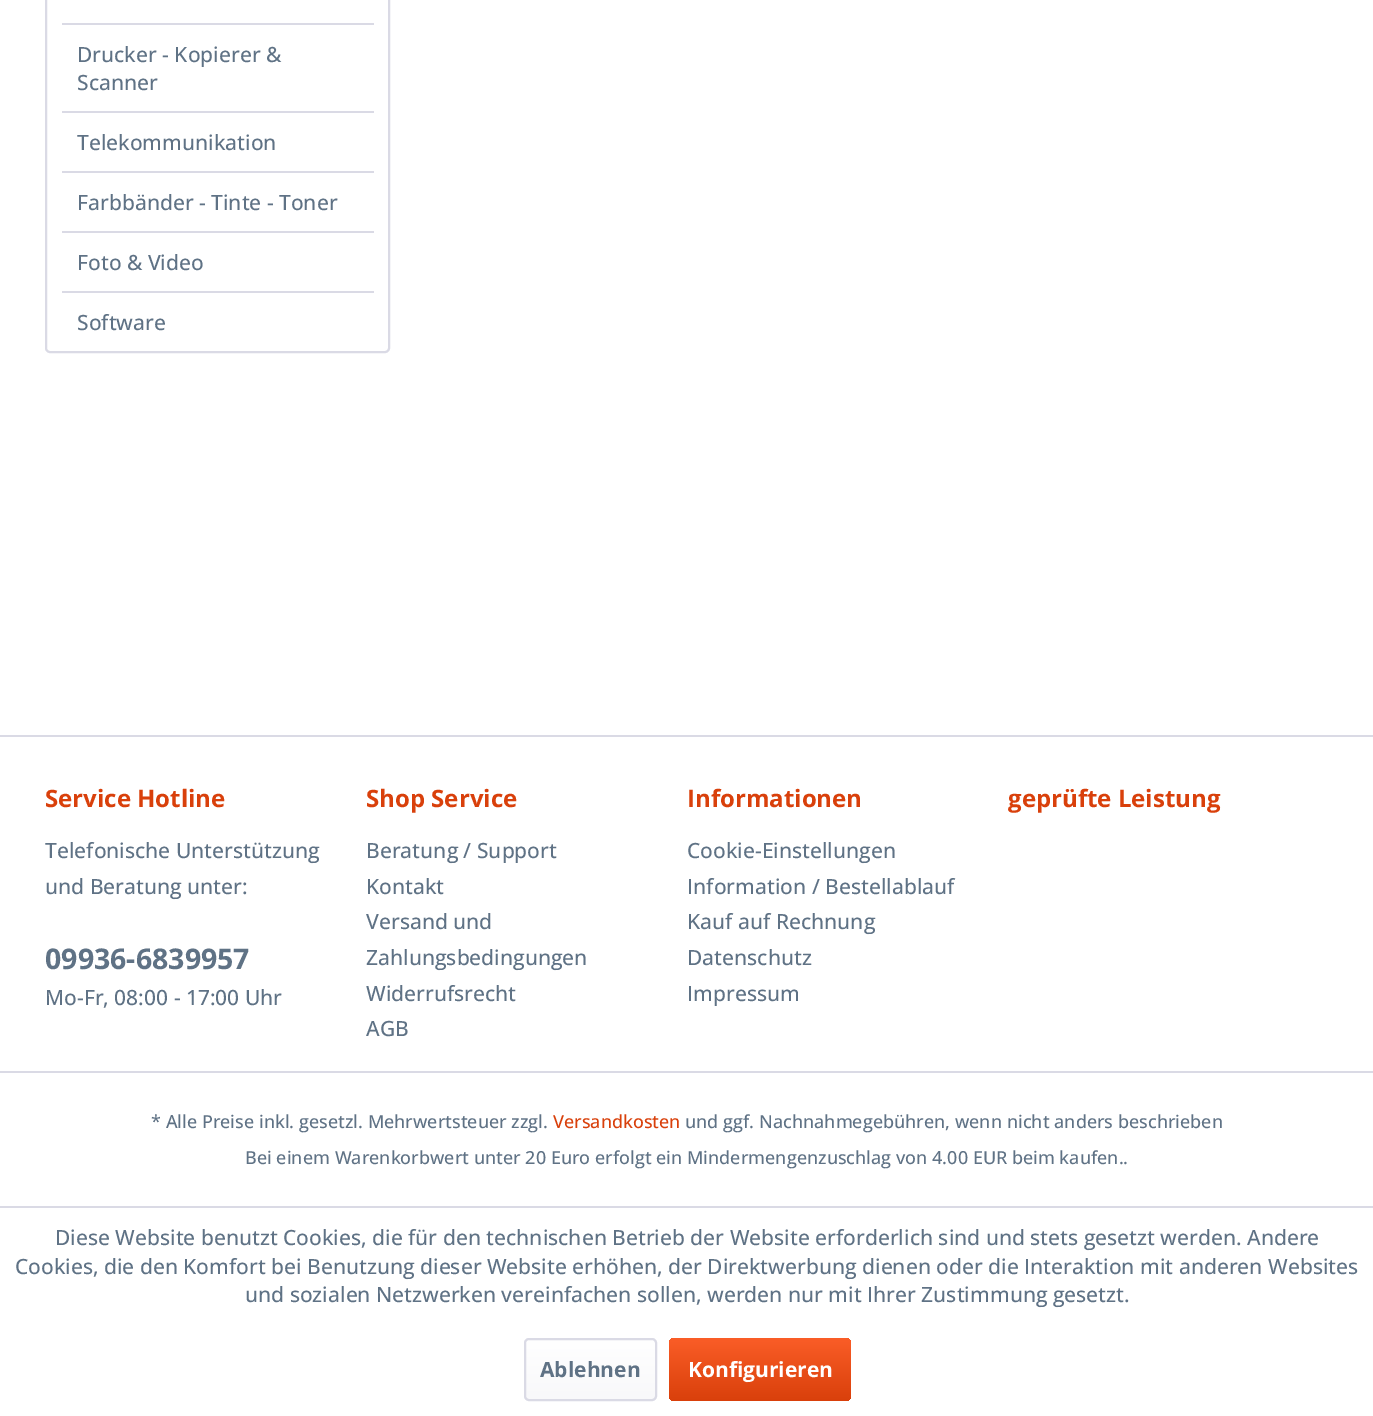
%!PS
<< /PageSize [1373 1416] >> setpagedevice
/st/stroke load def
/gs/gsave load def
/gr/grestore load def
/lw/setlinewidth load def
/co { dup -16 bitshift 255 div exch dup -8 bitshift 255 and 255 div exch 255 and 255 div setrgbcolor } def
/fn { [ exch dup neg 0 0 3 -1 roll 0 0 ] selectfont } def
/tx { co fn moveto show } def
/bx { co rectfill } def
/rr { 5 dict begin { /r /h /w /y /x } { exch def } forall
  x r add y moveto x w add y 2 copy h add r arct x w add y h add x 1 index r arct
  x y h add x y r arct x y 2 copy exch w add exch r arct closepath end } def
0 1416 translate 1 -1 scale
4 setmiterlimit
0 0 1373 1416 16#FFFFFF bx
16#DADAE5 co
2 lw
46 -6 343 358 4 rr st
62 23 312 2 16#DADAE5 bx
62 111 312 2 16#DADAE5 bx
62 171 312 2 16#DADAE5 bx
62 231 312 2 16#DADAE5 bx
62 291 312 2 16#DADAE5 bx
0 735 1373 2 16#DADAE5 bx
0 1071 1373 2 16#DADAE5 bx
0 1206 1373 2 16#DADAE5 bx
gs 525 1340 131 60 3 rr clip newpath
<< /ShadingType 2 /ColorSpace /DeviceRGB /Coords [590 1340 590 1400] /Extend [true true] /Function << /FunctionType 2 /Domain [0 1] /C0 [1 1 1] /C1 [.973 .973 .98] /N 1 >> >> shfill gr
525 1339 131 61 4 rr st
gs 669 1338 182 63 5 rr clip newpath
<< /ShadingType 2 /ColorSpace /DeviceRGB /Coords [760 1338 760 1401] /Extend [true true] /Function << /FunctionType 2 /Domain [0 1] /C0 [.98 .365 .153] /C1 [.851 .251 .043] /N 1 >> >> shfill gr
(Drucker - Kopierer &) 77 62 /OpenSans-Medium 21 16#5F7285 tx
(Scanner) 77 90 /OpenSans-Medium 21 16#5F7285 tx
(Telekommunikation) 77 150 /OpenSans-Medium 21 16#5F7285 tx
(Farbbänder - Tinte - Toner) 77 210 /OpenSans-Medium 21 16#5F7285 tx
(Foto & Video) 77 270 /OpenSans-Medium 21 16#5F7285 tx
(Software) 77 330 /OpenSans-Medium 21 16#5F7285 tx
(Service Hotline) 45 807 /OpenSans-Bold 24 16#D9400B tx
(Telefonische Unterstützung) 45 858 /OpenSans-Medium 21 16#5F7285 tx
(und Beratung unter:) 45 894 /OpenSans-Medium 21 16#5F7285 tx
(09936-6839957) 45 969 /OpenSans-Bold 28.5 16#5F7285 tx
(Mo-Fr, 08:00 - 17:00 Uhr) 45 1005 /OpenSans-Medium 21 16#5F7285 tx
(Shop Service) 366 807 /OpenSans-Bold 24 16#D9400B tx
(Beratung / Support) 366 858 /OpenSans-Medium 21 16#5F7285 tx
(Kontakt) 366 894 /OpenSans-Medium 21 16#5F7285 tx
(Versand und) 366 929 /OpenSans-Medium 21 16#5F7285 tx
(Zahlungsbedingungen) 366 965 /OpenSans-Medium 21 16#5F7285 tx
(Widerrufsrecht) 366 1001 /OpenSans-Medium 21 16#5F7285 tx
(AGB) 366 1036 /OpenSans-Medium 21 16#5F7285 tx
(Informationen) 687 807 /OpenSans-Bold 24 16#D9400B tx
(Cookie-Einstellungen) 687 858 /OpenSans-Medium 21 16#5F7285 tx
(Information / Bestellablauf) 687 894 /OpenSans-Medium 21 16#5F7285 tx
(Kauf auf Rechnung) 687 929 /OpenSans-Medium 21 16#5F7285 tx
(Datenschutz) 687 965 /OpenSans-Medium 21 16#5F7285 tx
(Impressum) 687 1001 /OpenSans-Medium 21 16#5F7285 tx
(geprüfte Leistung) 1008 807 /OpenSans-Bold 24 16#D9400B tx
(* Alle Preise inkl. gesetzl. Mehrwertsteuer zzgl.) 151 1128 /OpenSans-Medium 18 16#5F7285 tx
(Versandkosten) 553 1128 /OpenSans-Medium 18 16#D9400B tx
(und ggf. Nachnahmegebühren, wenn nicht anders beschrieben) 685 1128 /OpenSans-Medium 18 16#5F7285 tx
(Bei einem Warenkorbwert unter 20 Euro erfolgt ein Mindermengenzuschlag von 4.00 EUR beim kaufen..) 245 1164 /OpenSans-Medium 18 16#5F7285 tx
(Diese Website benutzt Cookies, die für den technischen Betrieb der Website erforderlich sind und stets gesetzt werden. Andere) 55 1245 /OpenSans-Medium 21 16#5F7285 tx
(Cookies, die den Komfort bei Benutzung dieser Website erhöhen, der Direktwerbung dienen oder die Interaktion mit anderen Websites) 15 1274 /OpenSans-Medium 21 16#5F7285 tx
(und sozialen Netzwerken vereinfachen sollen, werden nur mit Ihrer Zustimmung gesetzt.) 245 1302 /OpenSans-Medium 21 16#5F7285 tx
(Ablehnen) 540 1377 /OpenSans-Bold 21 16#5F7285 tx
(Konfigurieren) 688 1377 /OpenSans-Bold 21 16#FFFFFF tx
showpage
